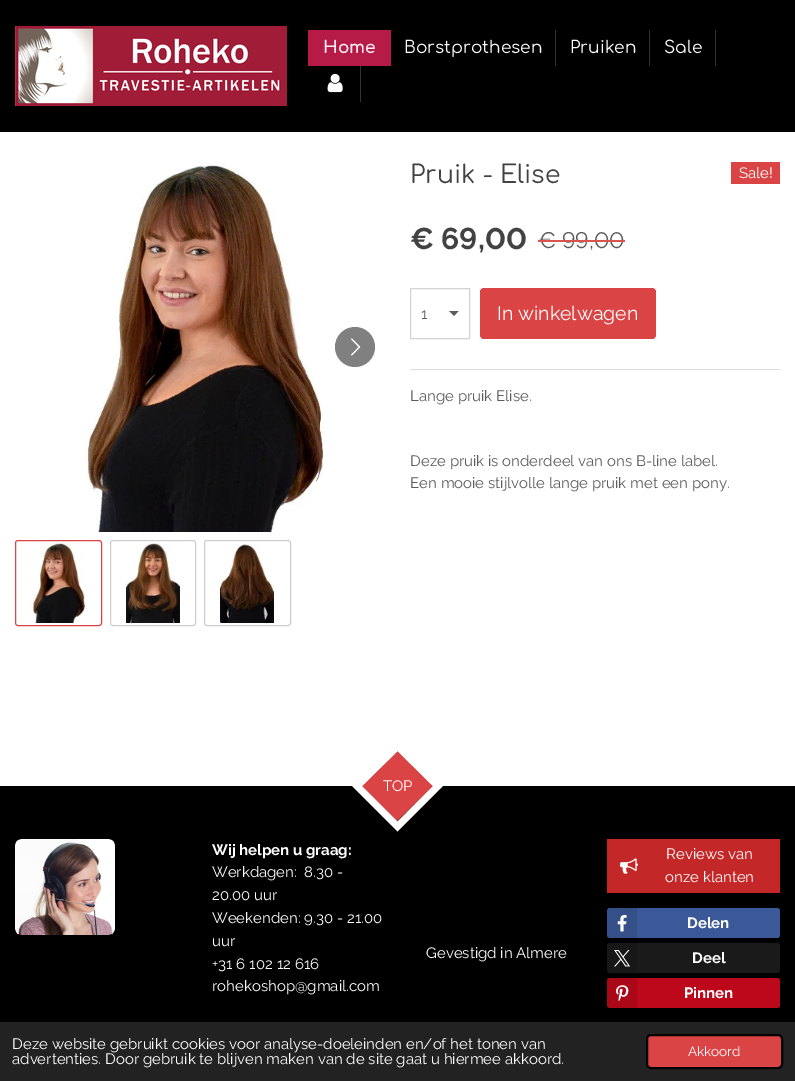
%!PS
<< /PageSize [795 1081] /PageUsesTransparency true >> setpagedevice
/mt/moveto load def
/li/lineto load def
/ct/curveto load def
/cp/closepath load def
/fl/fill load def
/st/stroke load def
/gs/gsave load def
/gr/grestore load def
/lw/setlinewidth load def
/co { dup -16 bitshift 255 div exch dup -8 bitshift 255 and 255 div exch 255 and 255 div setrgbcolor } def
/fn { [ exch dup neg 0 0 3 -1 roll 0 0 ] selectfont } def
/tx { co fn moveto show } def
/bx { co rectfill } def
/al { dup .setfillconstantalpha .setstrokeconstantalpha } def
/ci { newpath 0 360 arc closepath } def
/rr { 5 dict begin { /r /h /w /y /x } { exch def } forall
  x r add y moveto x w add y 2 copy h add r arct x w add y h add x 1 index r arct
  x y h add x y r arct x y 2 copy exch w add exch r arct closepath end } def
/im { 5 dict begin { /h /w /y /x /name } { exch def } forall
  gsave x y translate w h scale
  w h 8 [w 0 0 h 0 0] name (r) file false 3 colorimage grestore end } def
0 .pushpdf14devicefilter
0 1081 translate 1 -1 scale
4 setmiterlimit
0 0 795 1081 16#FFFFFF bx
0 0 795 132 16#000000 bx
(media/1.raw) 15 26 272 80 im
308 30 83 36 16#B61B48 bx
555 30 1 36 16#333333 bx
649 30 1 36 16#333333 bx
715 30 1 36 16#333333 bx
(media/2.raw) 327 73 16 20 im
360 66 1 36 16#333333 bx
(media/3.raw) 84 162 239 370 im
16#808080 co
355 347 20 ci fl
(media/4.raw) 351 338 10 18 im
16#DA4444 co
15.5 540.5 86 85 2.5 rr st
(media/5.raw) 31 543 54 80 im
16#CECECE co
110.5 540.5 85 85 2.5 rr st
(media/6.raw) 126 543 54 80 im
204.5 540.5 86 85 2.5 rr st
(media/7.raw) 220 543 54 80 im
731 162 49 22 16#DA4444 bx
16#5C5C5C co
454 316 mt 449 311 li 458.5 311 li cp fl
16#D3D3D3 co
410.5 288.5 59 50 rectstroke
16#DA4444 co
480 288 176 51 4 rr fl
410 369 370 1 16#DEDEDE bx
0 786 795 236 16#000000 bx
16#DA4444 co
398 751 mt 433 786 li 397 821 li 362 786 li cp fl
16#FFFFFF co
7 lw
397.5 746 mt 438 786 li 397.5 826.5 li 357 786 li cp st
(media/8.raw) 15 839 100 96 im
607 839 173 54 16#C42727 bx
(media/9.raw) 620 858 18 16 im
16#3B5998 co
607 908 173 30 3 rr fl
0.1 al
16#000000 co
610 908 mt 637 908 li 637 938 li 610 938 li 608.5 938 607 936.5 607 935 ct 607 911 li 607 909.5 608.5 908 610 908 ct cp fl
1 al
(media/10.raw) 617 915 10 17 im
16#1A1A1A co
607 943 173 30 3 rr fl
0.1 al
16#000000 co
610 943 mt 637 943 li 637 973 li 610 973 li 608.5 973 607 971.5 607 970 ct 607 946 li 607 944.5 608.5 943 610 943 ct cp fl
1 al
(media/11.raw) 614 950 16 17 im
16#BD081C co
607 978 173 30 3 rr fl
0.1 al
16#000000 co
610 978 mt 637 978 li 637 1008 li 610 1008 li 608.5 1008 607 1006.5 607 1005 ct 607 981 li 607 979.5 608.5 978 610 978 ct cp fl
1 al
(media/12.raw) 616 985 13 17 im
0 1022 795 59 16#222222 bx
16#DA4444 co
647 1035 135 33 4 rr gs fl gr
16#000000 co
2 lw
st
(Home) 323 53 /Comfortaa-Bold 17 16#FCEDF2 tx
(Borstprothesen) 404 53 /Comfortaa-Regular 17 16#FFFFFF tx
(Pruiken) 570 53 /Comfortaa-Regular 17 16#FFFFFF tx
(Sale) 664 53 /Comfortaa-Regular 17 16#FFFFFF tx
(Pruik - Elise) 410 183 /Comfortaa-Regular 25 16#424242 tx
(Sale!) 739 178 /Raleway-Regular 15 16#FFFFFF tx
(€ 69,00) 410 249 /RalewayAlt-Bold 30 16#424242 tx
(€ 99,00) 538 248 /RalewayAlt-Regular 22.5 16#5C5C5C tx
538 240 87 2 16#D9534F bx
(1) 421 319 /Raleway-Regular 15 16#5C5C5C tx
(In winkelwagen) 497 320 /Raleway-Regular 19.5 16#FFFFFF tx
(Lange pruik Elise.) 410 401 /Raleway-Regular 15 16#5C5C5C tx
(Deze pruik is onderdeel van ons B-line label.) 410 466 /Raleway-Regular 15 16#5C5C5C tx
(Een mooie stijlvolle lange pruik met een pony.) 410 488 /Raleway-Regular 15 16#5C5C5C tx
(TOP) 383 791 /Raleway-Regular 15 16#FFFFFF tx
(Wij helpen u graag:) 212 855 /Raleway-Bold 15 16#FFFFFF tx
(Werkdagen:  8.30 -) 212 877 /Raleway-Regular 15 16#FFFFFF tx
(20.00 uur) 212 900 /Raleway-Regular 15 16#FFFFFF tx
(Weekenden: 9.30 - 21.00) 212 923 /Raleway-Regular 15 16#FFFFFF tx
(uur) 212 946 /Raleway-Regular 15 16#FFFFFF tx
(+31 6 102 12 616) 212 969 /Raleway-Regular 15 16#FFFFFF tx
(rohekoshop@gmail.com) 212 991 /Raleway-Regular 15 16#FFFFFF tx
(Gevestigd in Almere) 426 958 /Raleway-Regular 15 16#FFFFFF tx
(Reviews van) 666 859 /Raleway-Regular 15 16#FFFFFF tx
(onze klanten) 665 882 /Raleway-Regular 15 16#FFFFFF tx
(Delen) 687 928 /Raleway-Bold 15 16#FFFFFF tx
(Deel) 692 963 /Raleway-Bold 15 16#FFFFFF tx
(Pinnen) 684 998 /Raleway-Bold 15 16#FFFFFF tx
(Deze website gebruikt cookies voor analyse-doeleinden en/of het tonen van) 12 1049 /Raleway-Regular 15 16#FFFFFF tx
(advertenties. Door gebruik te blijven maken van de site gaat u hiermee akkoord.) 12 1064 /Raleway-Regular 15 16#FFFFFF tx
(Akkoord) 688 1056 /Raleway-Regular 13.5 16#FFFFFF tx
.poppdf14devicefilter showpage
